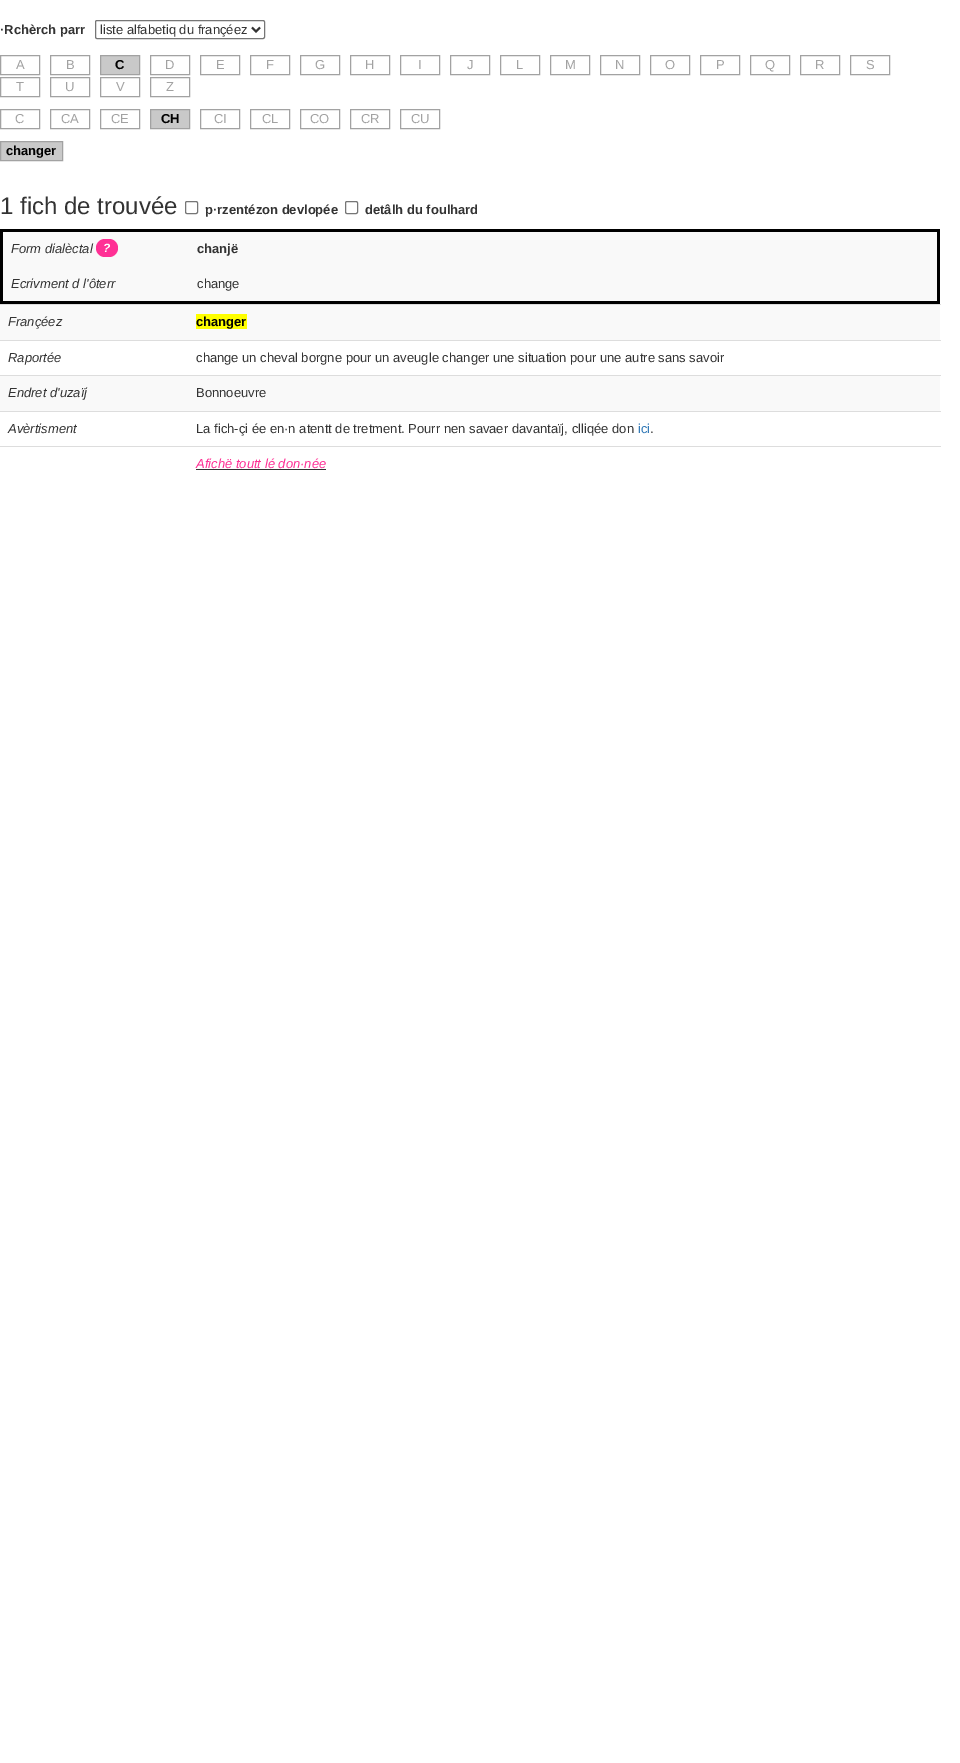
%!PS
<< /PageSize [960 1763] >> setpagedevice
/mt/moveto load def
/li/lineto load def
/cp/closepath load def
/fl/fill load def
/st/stroke load def
/gs/gsave load def
/gr/grestore load def
/lw/setlinewidth load def
/co { dup -16 bitshift 255 div exch dup -8 bitshift 255 and 255 div exch 255 and 255 div setrgbcolor } def
/fn { [ exch dup neg 0 0 3 -1 roll 0 0 ] selectfont } def
/tx { co fn moveto show } def
/bx { co rectfill } def
/rr { 5 dict begin { /r /h /w /y /x } { exch def } forall
  x r add y moveto x w add y 2 copy h add r arct x w add y h add x 1 index r arct
  x y h add x y r arct x y 2 copy exch w add exch r arct closepath end } def
0 1763 translate 1 -1 scale
4 setmiterlimit
0 0 960 1763 16#FFFFFF bx
16#767676 co
95.5 20.5 169 18 1.5 rr st
16#333333 co
2 lw
252 27.5 mt 256 31.5 li 260 27.5 li st
16#A2A2A2 co
1 lw
.5 55.5 39 19 rectstroke
50.5 55.5 39 19 rectstroke
16#C9C9C9 co
100.5 55.5 mt 139.5 55.5 li 139.5 74.5 li 100.5 74.5 li cp gs fl gr
16#A2A2A2 co
st
150.5 55.5 39 19 rectstroke
200.5 55.5 39 19 rectstroke
250.5 55.5 39 19 rectstroke
300.5 55.5 39 19 rectstroke
350.5 55.5 39 19 rectstroke
400.5 55.5 39 19 rectstroke
450.5 55.5 39 19 rectstroke
500.5 55.5 39 19 rectstroke
550.5 55.5 39 19 rectstroke
600.5 55.5 39 19 rectstroke
650.5 55.5 39 19 rectstroke
700.5 55.5 39 19 rectstroke
750.5 55.5 39 19 rectstroke
800.5 55.5 39 19 rectstroke
850.5 55.5 39 19 rectstroke
.5 77.5 39 19 rectstroke
50.5 77.5 39 19 rectstroke
100.5 77.5 39 19 rectstroke
150.5 77.5 39 19 rectstroke
.5 109.5 39 19 rectstroke
50.5 109.5 39 19 rectstroke
100.5 109.5 39 19 rectstroke
16#C9C9C9 co
150.5 109.5 mt 189.5 109.5 li 189.5 128.5 li 150.5 128.5 li cp gs fl gr
16#A2A2A2 co
st
200.5 109.5 39 19 rectstroke
250.5 109.5 39 19 rectstroke
300.5 109.5 39 19 rectstroke
350.5 109.5 39 19 rectstroke
400.5 109.5 39 19 rectstroke
16#C9C9C9 co
.5 141.5 mt 62.5 141.5 li 62.5 160.5 li .5 160.5 li cp gs fl gr
16#A2A2A2 co
st
16#767676 co
185.5 201.5 12 12 1.5 rr st
345.5 201.5 12 12 1.5 rr st
3 232 934 69 16#F9F9F9 bx
0 229 940 3 16#000000 bx
937 229 3 75 16#000000 bx
0 301 940 3 16#000000 bx
0 229 3 75 16#000000 bx
16#FF3095 co
96 239 22 18 9 rr fl
0 305 940 35 16#F9F9F9 bx
0 304 941 1 16#DDDDDD bx
196 314 51 15 16#FFFF00 bx
0 340 941 1 16#DDDDDD bx
0 376 940 35 16#F9F9F9 bx
0 375 941 1 16#DDDDDD bx
0 411 941 1 16#DDDDDD bx
0 446 941 1 16#DDDDDD bx
196 469 130 1 16#333333 bx
(·Rchèrch parr) 0 34 /LiberationSans-Bold 13 16#333333 tx
(liste alfabetiq du françéez) 100 34 /LiberationSans-Regular 13 16#333333 tx
(A) 16 69 /LiberationSans-Regular 13 16#A2A2A2 tx
(B) 66 69 /LiberationSans-Regular 13 16#A2A2A2 tx
(C) 115 69 /LiberationSans-Bold 13 16#000000 tx
(D) 165 69 /LiberationSans-Regular 13 16#A2A2A2 tx
(E) 216 69 /LiberationSans-Regular 13 16#A2A2A2 tx
(F) 266 69 /LiberationSans-Regular 13 16#A2A2A2 tx
(G) 315 69 /LiberationSans-Regular 13 16#A2A2A2 tx
(H) 365 69 /LiberationSans-Regular 13 16#A2A2A2 tx
(I) 418 69 /LiberationSans-Regular 13 16#A2A2A2 tx
(J) 467 69 /LiberationSans-Regular 13 16#A2A2A2 tx
(L) 516 69 /LiberationSans-Regular 13 16#A2A2A2 tx
(M) 565 69 /LiberationSans-Regular 13 16#A2A2A2 tx
(N) 615 69 /LiberationSans-Regular 13 16#A2A2A2 tx
(O) 665 69 /LiberationSans-Regular 13 16#A2A2A2 tx
(P) 716 69 /LiberationSans-Regular 13 16#A2A2A2 tx
(Q) 765 69 /LiberationSans-Regular 13 16#A2A2A2 tx
(R) 815 69 /LiberationSans-Regular 13 16#A2A2A2 tx
(S) 866 69 /LiberationSans-Regular 13 16#A2A2A2 tx
(T) 16 91 /LiberationSans-Regular 13 16#A2A2A2 tx
(U) 65 91 /LiberationSans-Regular 13 16#A2A2A2 tx
(V) 116 91 /LiberationSans-Regular 13 16#A2A2A2 tx
(Z) 166 91 /LiberationSans-Regular 13 16#A2A2A2 tx
(C) 15 123 /LiberationSans-Regular 13 16#A2A2A2 tx
(CA) 61 123 /LiberationSans-Regular 13 16#A2A2A2 tx
(CE) 111 123 /LiberationSans-Regular 13 16#A2A2A2 tx
(CH) 161 123 /LiberationSans-Bold 13 16#000000 tx
(CI) 214 123 /LiberationSans-Regular 13 16#A2A2A2 tx
(CL) 262 123 /LiberationSans-Regular 13 16#A2A2A2 tx
(CO) 310 123 /LiberationSans-Regular 13 16#A2A2A2 tx
(CR) 361 123 /LiberationSans-Regular 13 16#A2A2A2 tx
(CU) 411 123 /LiberationSans-Regular 13 16#A2A2A2 tx
(changer) 6 155 /LiberationSans-Bold 13 16#000000 tx
(1 fich de trouvée) 0 214 /LiberationSans-Regular 24 16#333333 tx
(p·rzentézon devlopée) 205 214 /LiberationSans-Bold 13 16#333333 tx
(detâlh du foulhard) 365 214 /LiberationSans-Bold 13 16#333333 tx
(Form dialèctal) 11 253 /LiberationSans-Italic 13 16#333333 tx
(?) 103 252 /LiberationSans-BoldItalic 12 16#FFFFFF tx
(chanjë) 197 253 /LiberationSans-Bold 13 16#333333 tx
(Ecrivment d l'ôterr) 11 288 /LiberationSans-Italic 13 16#333333 tx
(change) 197 288 /LiberationSans-Regular 13 16#333333 tx
(Françéez) 8 326 /LiberationSans-Italic 13 16#333333 tx
(changer) 196 326 /LiberationSans-Bold 13 16#000000 tx
(Raportée) 8 362 /LiberationSans-Italic 13 16#333333 tx
(change un cheval borgne pour un aveugle changer une situation pour une autre sans savoir) 196 362 /LiberationSans-Regular 13 16#333333 tx
(Endret d'uzaïj) 8 397 /LiberationSans-Italic 13 16#333333 tx
(Bonnoeuvre) 196 397 /LiberationSans-Regular 13 16#333333 tx
(Avèrtisment) 8 433 /LiberationSans-Italic 13 16#333333 tx
(La fich-çi ée en·n atentt de tretment. Pourr nen savaer davantaïj, clliqée don) 196 433 /LiberationSans-Regular 13 16#333333 tx
(ici) 638 433 /LiberationSans-Regular 13 16#337AB7 tx
(.) 650 433 /LiberationSans-Regular 13 16#333333 tx
(Afichë toutt lé don·née) 196 468 /LiberationSans-Italic 13 16#FF3095 tx
showpage
